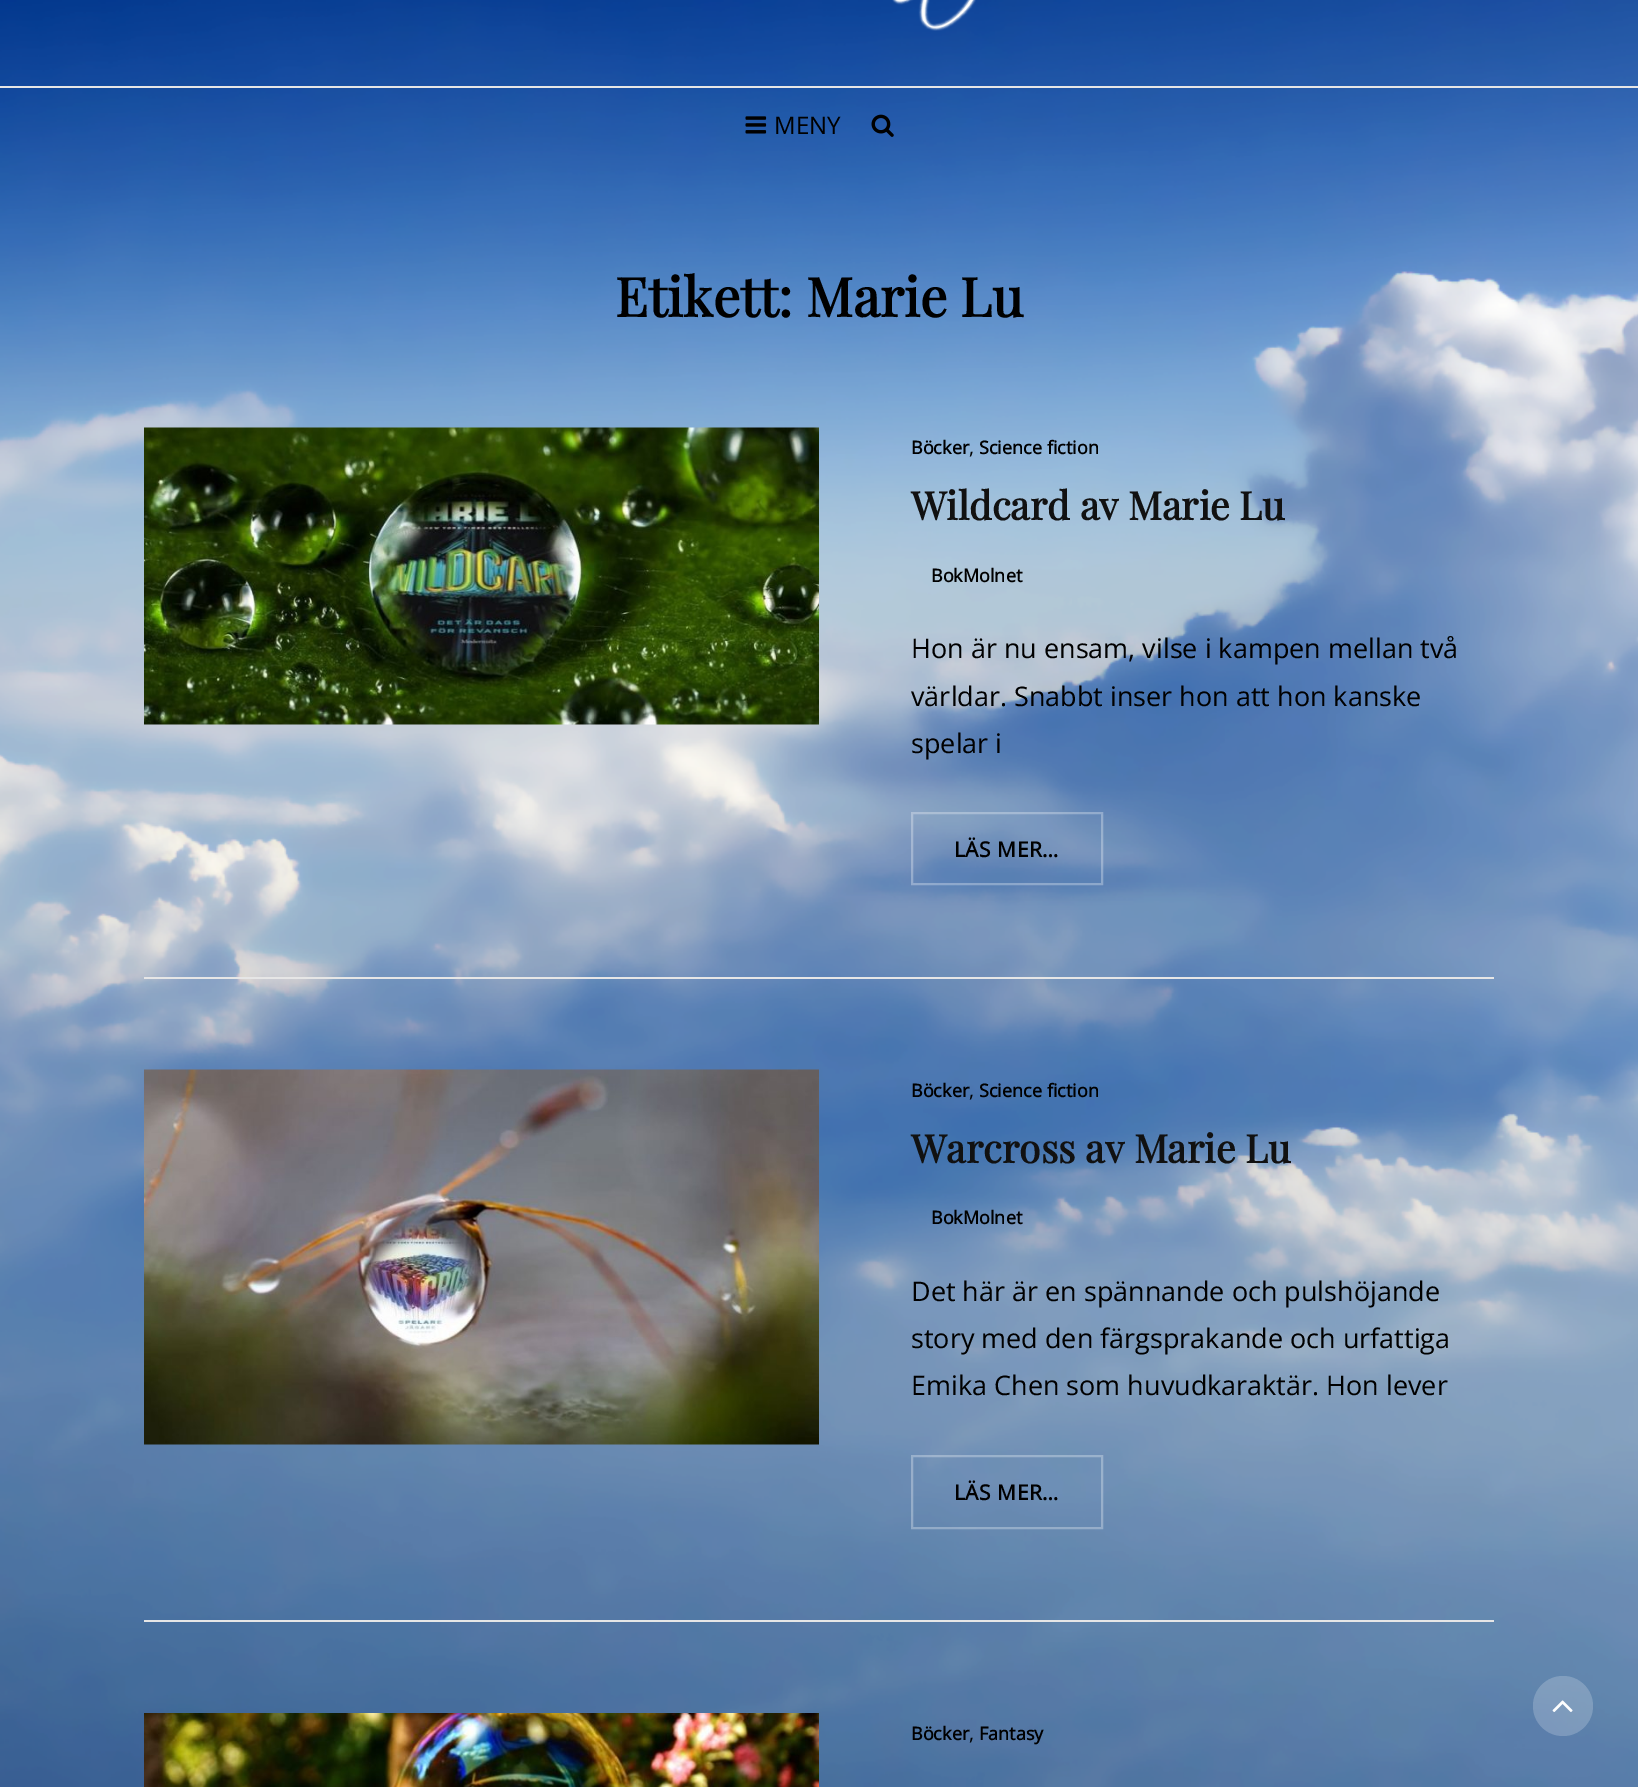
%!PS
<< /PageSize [1638 1787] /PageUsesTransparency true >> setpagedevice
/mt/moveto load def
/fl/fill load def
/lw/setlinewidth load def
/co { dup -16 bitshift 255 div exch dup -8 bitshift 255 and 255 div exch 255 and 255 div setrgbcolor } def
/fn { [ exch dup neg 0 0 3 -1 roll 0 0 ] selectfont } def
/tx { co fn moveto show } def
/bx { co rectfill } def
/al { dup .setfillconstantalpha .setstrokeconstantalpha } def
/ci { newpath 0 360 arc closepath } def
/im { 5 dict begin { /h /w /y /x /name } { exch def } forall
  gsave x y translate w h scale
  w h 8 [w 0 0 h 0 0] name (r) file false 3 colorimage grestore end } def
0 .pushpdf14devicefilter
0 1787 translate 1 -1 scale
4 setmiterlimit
0 0 1638 1787 16#FFFFFF bx
(media/1.raw) 0 0 1638 1787 im
(media/2.raw) 892 0 84 31 im
0 86 1638 2 16#E6E6E6 bx
(media/3.raw) 745 116 22 18 im
(media/4.raw) 871 114 23 23 im
144 977 1350 2 16#E6E6E6 bx
(media/5.raw) 144 427 675 298 im
0.3 al
16#FFFFFF co
2 lw
912 813 190 71 rectstroke
1 al
144 1620 1350 2 16#E6E6E6 bx
(media/6.raw) 144 1069 675 376 im
0.3 al
16#FFFFFF co
912 1456 190 72 rectstroke
1 al
(media/7.raw) 144 1713 675 74 im
0.2 al
1563 1706 30 ci fl
1 al
(media/8.raw) 1552 1700 21 12 im
(MENY) 774 134 /OpenSans-Regular 24 16#000000 tx
(Etikett: Marie Lu) 615 317 /PlayfairDisplay-Bold 54 16#000000 tx
(Böcker) 911 454 /OpenSans-Bold 18 16#000000 tx
(,) 969 454 /OpenSans-Regular 20 16#000000 tx
(Science fiction) 979 454 /OpenSans-Bold 18 16#000000 tx
(Wildcard av Marie Lu) 911 520 /PlayfairDisplay-Bold 39 16#111111 tx
(BokMolnet) 931 582 /OpenSans-Bold 18 16#000000 tx
(Hon är nu ensam, vilse i kampen mellan två) 911 658 /OpenSans-Regular 27 16#000000 tx
(världar. Snabbt inser hon att hon kanske) 911 706 /OpenSans-Regular 27 16#000000 tx
(spelar i) 911 753 /OpenSans-Regular 27 16#000000 tx
/OpenSans-Bold 21 fn
954 857 mt .5 0 (LÄS MER…) ashow
(Böcker) 911 1097 /OpenSans-Bold 18 16#000000 tx
(,) 969 1097 /OpenSans-Regular 20 16#000000 tx
(Science fiction) 979 1097 /OpenSans-Bold 18 16#000000 tx
(Warcross av Marie Lu) 911 1163 /PlayfairDisplay-Bold 39 16#111111 tx
(BokMolnet) 931 1224 /OpenSans-Bold 18 16#000000 tx
(Det här är en spännande och pulshöjande) 911 1301 /OpenSans-Regular 27 16#000000 tx
(story med den färgsprakande och urfattiga) 911 1348 /OpenSans-Regular 27 16#000000 tx
(Emika Chen som huvudkaraktär. Hon lever) 911 1395 /OpenSans-Regular 27 16#000000 tx
/OpenSans-Bold 21 fn
954 1500 mt .5 0 (LÄS MER…) ashow
(Böcker) 911 1740 /OpenSans-Bold 18 16#000000 tx
(,) 969 1740 /OpenSans-Regular 20 16#000000 tx
(Fantasy) 979 1740 /OpenSans-Bold 18 16#000000 tx
.poppdf14devicefilter showpage
